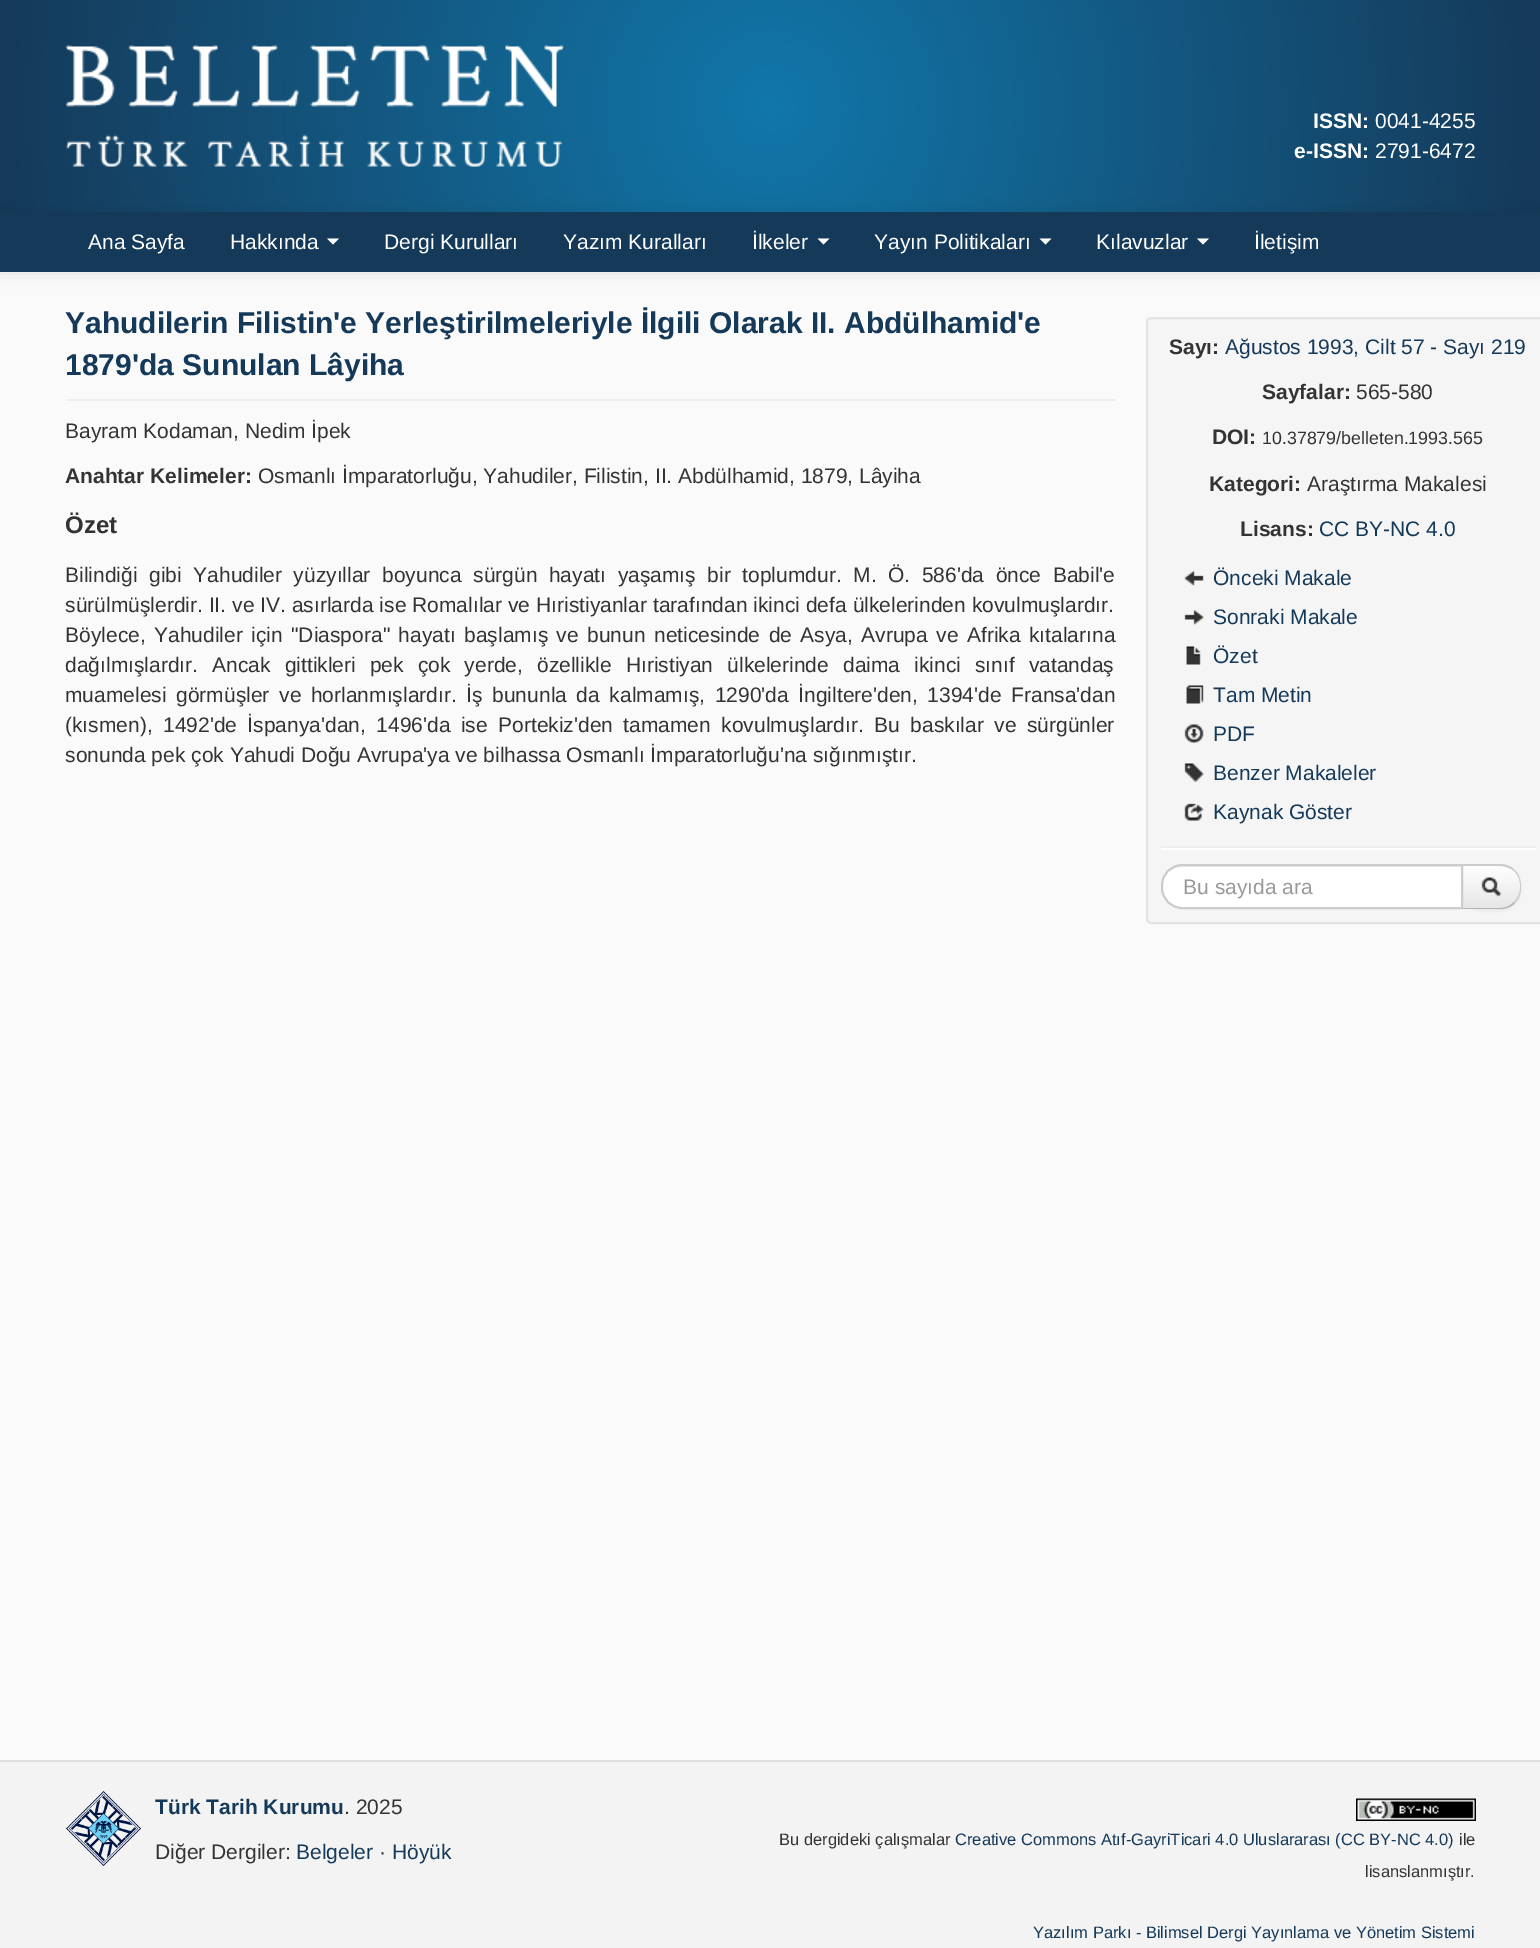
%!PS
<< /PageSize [1540 1948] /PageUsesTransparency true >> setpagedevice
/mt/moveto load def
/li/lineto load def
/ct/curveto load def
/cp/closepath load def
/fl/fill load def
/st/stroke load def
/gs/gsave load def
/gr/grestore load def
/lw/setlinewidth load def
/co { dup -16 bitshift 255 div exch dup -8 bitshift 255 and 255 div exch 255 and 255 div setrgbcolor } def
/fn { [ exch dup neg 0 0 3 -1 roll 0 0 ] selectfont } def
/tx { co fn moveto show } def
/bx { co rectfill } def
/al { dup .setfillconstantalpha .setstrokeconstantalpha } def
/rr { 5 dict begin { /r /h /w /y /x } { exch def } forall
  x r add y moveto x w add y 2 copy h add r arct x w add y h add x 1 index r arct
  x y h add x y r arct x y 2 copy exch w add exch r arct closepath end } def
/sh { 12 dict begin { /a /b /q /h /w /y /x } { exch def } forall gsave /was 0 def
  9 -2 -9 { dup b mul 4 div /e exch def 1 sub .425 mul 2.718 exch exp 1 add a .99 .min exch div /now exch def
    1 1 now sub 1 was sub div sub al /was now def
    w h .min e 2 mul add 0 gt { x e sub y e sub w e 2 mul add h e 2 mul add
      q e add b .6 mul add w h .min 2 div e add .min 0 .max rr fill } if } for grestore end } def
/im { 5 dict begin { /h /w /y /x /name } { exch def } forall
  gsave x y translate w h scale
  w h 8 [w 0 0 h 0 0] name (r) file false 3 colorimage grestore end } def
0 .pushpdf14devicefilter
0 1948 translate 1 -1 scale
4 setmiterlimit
0 0 1540 1948 16#FAFAFA bx
gs 0 0 mt 1540 0 li 1540 212 li 0 212 li cp clip newpath 770 106 translate 777 777 scale
<< /ShadingType 3 /ColorSpace /DeviceRGB /Coords [0 0 0 0 0 1] /Extend [true true] /Function << /FunctionType 2 /Domain [0 1] /C0 [.067 .467 .667] /C1 [.082 .224 .349] /N 1 >> >> shfill gr
(media/1.raw) 66 45 498 122 im
16#000000 co
0 213 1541 60 0 7.5 .1 sh
0 212 1540 60 16#153959 bx
16#FEFEFE co
327 238.5 mt 339 238.5 li 333 244.5 li cp fl
817.5 238.5 mt 829.5 238.5 li 823.5 244.5 li cp fl
1039.5 238.5 mt 1051.5 238.5 li 1045.5 244.5 li cp fl
1197 238.5 mt 1209 238.5 li 1203 244.5 li cp fl
66 399 1050 2 16#EEEEEE bx
16#F5F5F5 co
1147 318 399 605 4 rr gs fl gr
16#E3E3E3 co
2 lw
st
(media/2.raw) 1184 571 20 15 im
(media/3.raw) 1184 610 20 15 im
(media/4.raw) 1186 646 15 19 im
(media/5.raw) 1186 685 18 19 im
(media/6.raw) 1184 724 20 19 im
(media/7.raw) 1184 763 20 19 im
(media/8.raw) 1184 803 20 18 im
1161 846 375 2 16#EEEEEE bx
1161 848 375 2 16#FFFFFF bx
16#000000 co
1461 866 60 45 21 1.5 .05 sh
gs
1461 864 mt 1500 864 li 1511.5 864 1521 873.5 1521 885 ct 1521 888 li 1521 899.5 1511.5 909 1500 909 ct 1461 909 li cp clip newpath
gs 1463 866 mt 1521 866 li 1521 908 li 1463 908 li cp clip newpath
<< /ShadingType 2 /ColorSpace /DeviceRGB /Coords [1491 866 1491 908] /Extend [true true] /Function << /FunctionType 2 /Domain [0 1] /C0 [1 1 1] /C1 [.902 .902 .902] /N 1 >> >> shfill gr
gr
16#CCCCCC co
1461 864 mt 1463 866 li 1500 866 li 1505 866 1510 868 1514 871 ct 1515 870 li 1511 866 1506 864 1500 864 ct cp fl
1521 888 mt 1521 881.5 1520 875 1515 870 ct 1514 871 li 1522.5 879 1522 894 1514 902 ct 1515 903 li 1519 899 1521 894 1521 888 ct cp fl
16#B3B3B3 co
1500 909 mt 1506 909 1511 907 1515 903 ct 1514 902 li 1510 906 1506 908 1500 908 ct 1462 908 li 1461 909 li cp fl
16#FFFFFF co
1182 864 mt 1463 864 li 1463 909 li 1182 909 li 1170.5 909 1161 899.5 1161 888 ct 1161 885 li 1161 873.5 1170.5 864 1182 864 ct cp fl
16#ECECEC co
1182 867 mt 1461 867 li 1461 866 li 1183 866 li 1177 866 1172 868 1169 872 ct 1172 869 1177 867 1182 867 ct cp fl
16#CCCCCC co
1182 865 mt 1462 865 li 1462 908 li 1182 908 li 1171 908 1162 899 1162 888 ct 1162 885 li 1162 874 1171 865 1182 865 ct cp st
(media/9.raw) 1481 877 21 20 im
0 1762 1540 186 16#F3F3F3 bx
0 1760 1540 2 16#DDDDDD bx
(media/10.raw) 66 1791 75 75 im
(media/11.raw) 1356 1798 120 23 im
(ISSN:) 1313 128 /LiberationSans-Bold 21 16#FFFFFF tx
(0041-4255) 1375 128 /LiberationSans-Regular 21 16#FFFFFF tx
(e-ISSN:) 1294 158 /LiberationSans-Bold 21 16#FFFFFF tx
(2791-6472) 1375 158 /LiberationSans-Regular 21 16#FFFFFF tx
(Ana Sayfa) 88 249 /LiberationSans-Regular 21 16#FFFFFF tx
(Hakkında) 230 249 /LiberationSans-Regular 21 16#FFFFFF tx
(Dergi Kurulları) 384 249 /LiberationSans-Regular 21 16#FFFFFF tx
(Yazım Kuralları) 563 249 /LiberationSans-Regular 21 16#FFFFFF tx
(İlkeler) 752 249 /LiberationSans-Regular 21 16#FFFFFF tx
(Yayın Politikaları) 874 249 /LiberationSans-Regular 21 16#FFFFFF tx
(Kılavuzlar) 1096 249 /LiberationSans-Regular 21 16#FFFFFF tx
(İletişim) 1254 249 /LiberationSans-Regular 21 16#FFFFFF tx
(Yahudilerin Filistin'e Yerleştirilmeleriyle İlgili Olarak II. Abdülhamid'e) 65 333 /LiberationSans-Bold 30 16#153959 tx
(1879'da Sunulan Lâyiha) 65 375 /LiberationSans-Bold 30 16#153959 tx
(Bayram Kodaman, Nedim İpek) 65 438 /LiberationSans-Regular 21 16#333333 tx
(Anahtar Kelimeler:) 65 483 /LiberationSans-Bold 21 16#333333 tx
(Osmanlı İmparatorluğu, Yahudiler, Filistin, II. Abdülhamid, 1879, Lâyiha) 258 483 /LiberationSans-Regular 21 16#333333 tx
(Özet) 65 533 /LiberationSans-Bold 24 16#333333 tx
/LiberationSans-Regular 21 fn
65 582 mt 5.75 0 32 (Bilindiği gibi Yahudiler yüzyıllar boyunca sürgün hayatı yaşamış bir toplumdur. M. Ö. 586'da önce Babil'e) widthshow
65 612 mt .1 0 32 (sürülmüşlerdir. II. ve IV. asırlarda ise Romalılar ve Hıristiyanlar tarafından ikinci defa ülkelerinden kovulmuşlardır.) widthshow
65 642 mt 2.6 0 32 (Böylece, Yahudiler için "Diaspora" hayatı başlamış ve bunun neticesinde de Asya, Avrupa ve Afrika kıtalarına) widthshow
65 672 mt 8.25 0 32 (dağılmışlardır. Ancak gittikleri pek çok yerde, özellikle Hıristiyan ülkelerinde daima ikinci sınıf vatandaş) widthshow
65 702 mt 3.75 0 32 (muamelesi görmüşler ve horlanmışlardır. İş bununla da kalmamış, 1290'da İngiltere'den, 1394'de Fransa'dan) widthshow
65 732 mt 4.6 0 32 (\(kısmen\), 1492'de İspanya'dan, 1496'da ise Portekiz'den tamamen kovulmuşlardır. Bu baskılar ve sürgünler) widthshow
(sonunda pek çok Yahudi Doğu Avrupa'ya ve bilhassa Osmanlı İmparatorluğu'na sığınmıştır.) 65 762 /LiberationSans-Regular 21 16#333333 tx
(Sayı:) 1169 354 /LiberationSans-Bold 21 16#333333 tx
(Ağustos 1993, Cilt 57 - Sayı 219) 1225 354 /LiberationSans-Regular 21 16#153959 tx
(Sayfalar:) 1262 399 /LiberationSans-Bold 21 16#333333 tx
(565-580) 1356 399 /LiberationSans-Regular 21 16#333333 tx
(DOI:) 1212 444 /LiberationSans-Bold 21 16#333333 tx
(10.37879/belleten.1993.565) 1262 444 /LiberationSans-Regular 17.8 16#333333 tx
(Kategori:) 1209 491 /LiberationSans-Bold 21 16#333333 tx
(Araştırma Makalesi) 1307 491 /LiberationSans-Regular 21 16#333333 tx
(Lisans:) 1240 536 /LiberationSans-Bold 21 16#333333 tx
(CC BY-NC 4.0) 1319 536 /LiberationSans-Regular 21 16#153959 tx
(Önceki Makale) 1213 585 /LiberationSans-Regular 21 16#153959 tx
(Sonraki Makale) 1213 624 /LiberationSans-Regular 21 16#153959 tx
(Özet) 1213 663 /LiberationSans-Regular 21 16#153959 tx
(Tam Metin) 1213 702 /LiberationSans-Regular 21 16#153959 tx
(PDF) 1213 741 /LiberationSans-Regular 21 16#153959 tx
(Benzer Makaleler) 1213 780 /LiberationSans-Regular 21 16#153959 tx
(Kaynak Göster) 1213 819 /LiberationSans-Regular 21 16#153959 tx
(Bu sayıda ara) 1183 894 /LiberationSans-Regular 21 16#999999 tx
(Türk Tarih Kurumu) 155 1814 /LiberationSans-Bold 21 16#153959 tx
(. 2025) 344 1814 /LiberationSans-Regular 21 16#333333 tx
(Diğer Dergiler:) 155 1859 /LiberationSans-Regular 21 16#333333 tx
(Belgeler) 296 1859 /LiberationSans-Regular 21 16#153959 tx
(·) 379 1859 /LiberationSans-Regular 21 16#333333 tx
(Höyük) 392 1859 /LiberationSans-Regular 21 16#153959 tx
(Bu dergideki çalışmalar) 779 1845 /LiberationSans-Regular 16.5 16#333333 tx
(Creative Commons Atıf-GayriTicari 4.0 Uluslararası \(CC BY-NC 4.0\)) 955 1845 /LiberationSans-Regular 16.5 16#153959 tx
(ile) 1459 1845 /LiberationSans-Regular 16.5 16#333333 tx
(lisanslanmıştır.) 1365 1877 /LiberationSans-Regular 16.5 16#333333 tx
(Yazılım Parkı - Bilimsel Dergi Yayınlama ve Yönetim Sistemi) 1033 1938 /LiberationSans-Regular 16.5 16#153959 tx
.poppdf14devicefilter showpage
